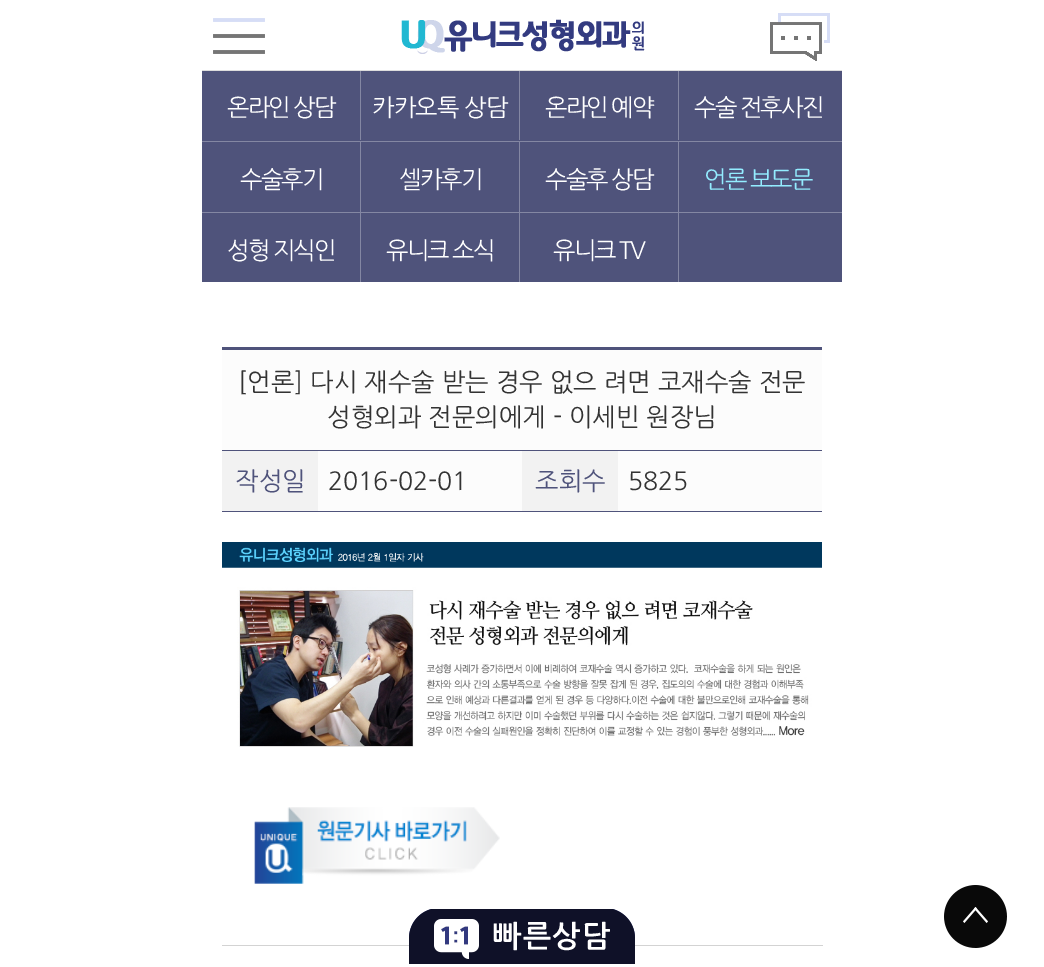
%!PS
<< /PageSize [1044 967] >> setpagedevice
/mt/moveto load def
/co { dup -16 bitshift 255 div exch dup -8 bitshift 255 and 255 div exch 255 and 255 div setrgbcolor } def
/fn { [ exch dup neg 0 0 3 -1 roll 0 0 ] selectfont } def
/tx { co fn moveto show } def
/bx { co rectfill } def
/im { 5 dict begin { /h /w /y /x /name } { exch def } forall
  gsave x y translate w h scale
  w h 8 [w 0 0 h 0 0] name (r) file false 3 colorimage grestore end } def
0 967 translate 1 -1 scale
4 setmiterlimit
0 0 1044 967 16#FFFFFF bx
202 71 640 211 16#4F537B bx
360 70 1 70 16#8487A3 bx
519 70 1 70 16#8487A3 bx
678 70 1 70 16#8487A3 bx
202 70 640 1 16#DDDDDD bx
(media/1.raw) 213 18 52 36 im
(media/2.raw) 401 19 244 35 im
(media/3.raw) 770 13 60 48 im
678 213 1 69 16#8487A3 bx
519 213 1 69 16#8487A3 bx
360 213 1 69 16#8487A3 bx
202 141 640 1 16#8487A3 bx
202 212 640 1 16#8487A3 bx
360 142 1 70 16#8487A3 bx
519 142 1 70 16#8487A3 bx
678 142 1 70 16#8487A3 bx
222 347 600 3 16#4F537B bx
222 350 600 100 16#FCFCFC bx
222 450 600 1 16#4F537B bx
222 451 96 60 16#F2F2F2 bx
318 451 204 60 16#FCFCFC bx
522 451 96 60 16#F2F2F2 bx
618 451 204 60 16#FCFCFC bx
222 511 600 1 16#4F537B bx
(media/4.raw) 222 542 600 205 im
(media/5.raw) 254 807 246 77 im
222 945 601 1 16#D3D3D3 bx
(media/6.raw) 409 909 226 55 im
(media/7.raw) 434 919 45 40 im
(media/8.raw) 944 885 63 63 im
/NanumGothic-Regular 24 fn
16#FFFFFF co
227 116 mt -2 0 (온라인 상담) ashow
372 116 mt -1 0 (카카오톡 상담) ashow
545 116 mt -2 0 (온라인 예약) ashow
694 116 mt -2 0 (수술 전후사진) ashow
240 188 mt -2 0 (수술후기) ashow
399 188 mt -2 0 (셀카후기) ashow
545 188 mt -2 0 (수술후 상담) ashow
16#93ECFF co
704 188 mt -2 0 (언론 보도문) ashow
16#FFFFFF co
227 259 mt -2 0 (성형 지식인) ashow
386 259 mt -2 0 (유니크 소식) ashow
553 259 mt -2 0 (유니크 TV) ashow
([언론] 다시 재수술 받는 경우 없으 려면 코재수술 전문) 238 391 /NanumGothic-Regular 25 16#333333 tx
(성형외과 전문의에게 - 이세빈 원장님) 327 426 /NanumGothic-Regular 25 16#333333 tx
(작성일) 235 490 /NanumGothic-Regular 25 16#4F537B tx
(2016-02-01) 328 490 /NanumGothic-Regular 25 16#333333 tx
(조회수) 535 490 /NanumGothic-Regular 25 16#4F537B tx
(5825) 628 490 /NanumGothic-Regular 25 16#333333 tx
/NanumGothic-Bold 30 fn
16#FFFFFF co
493 947 mt 1.5 0 (빠른상담) ashow
showpage
